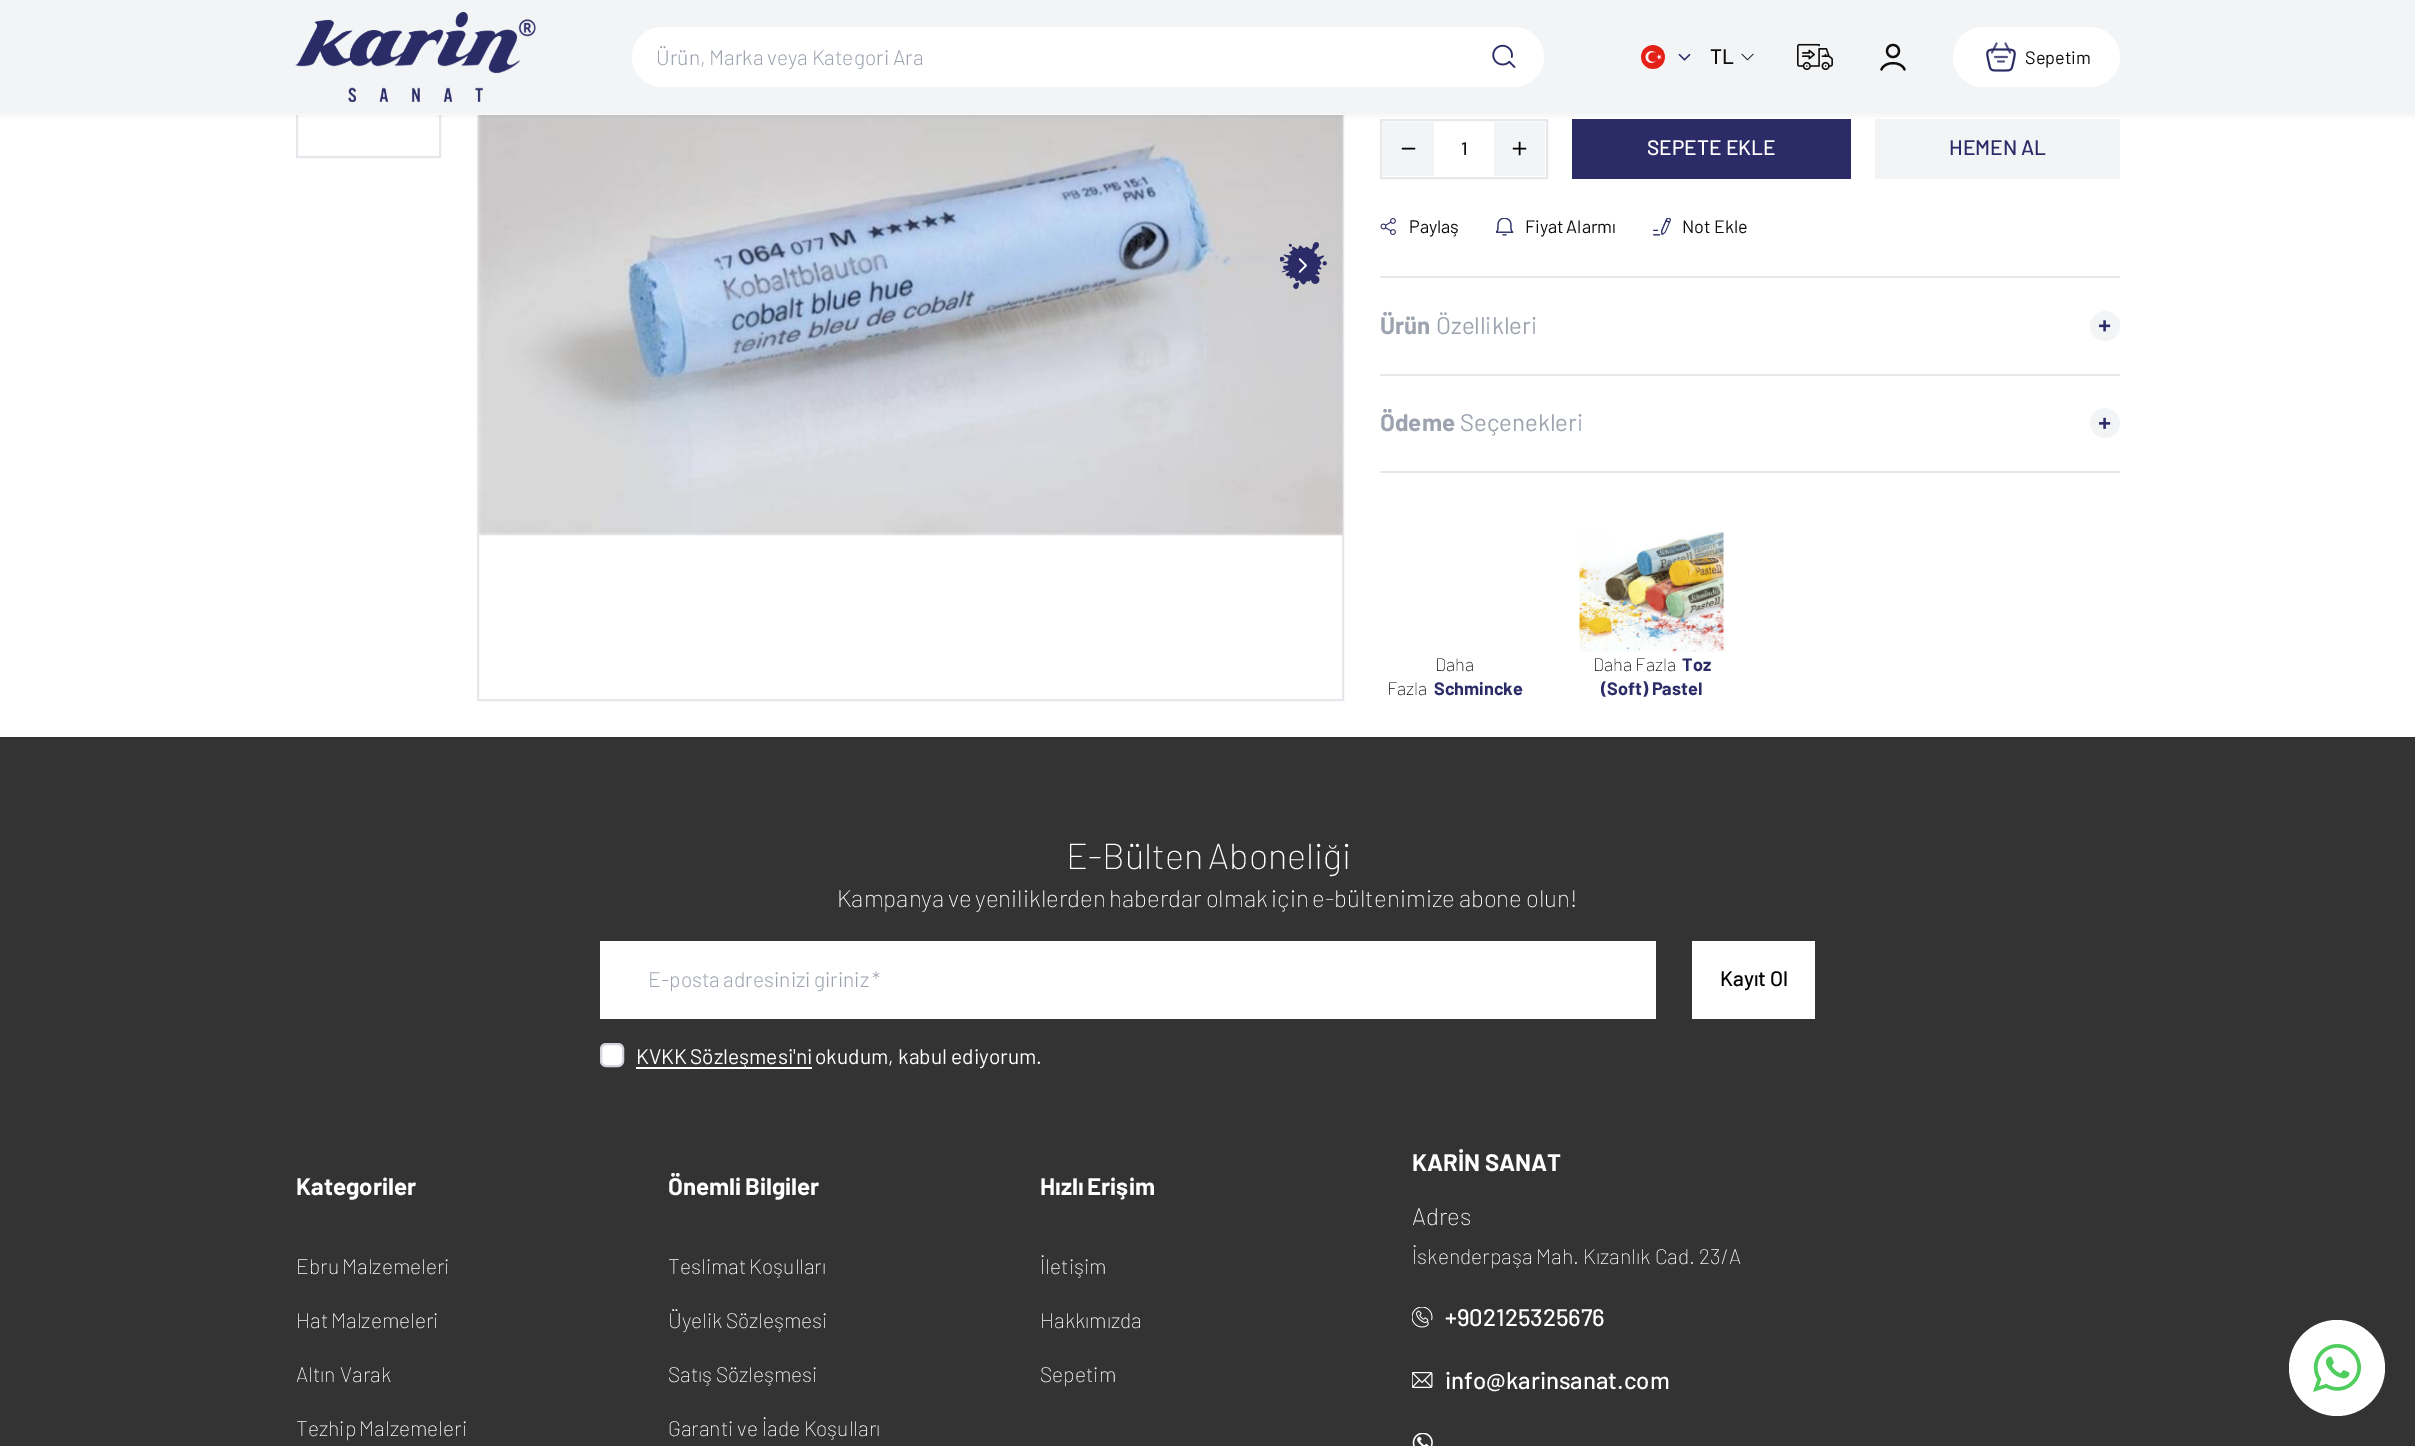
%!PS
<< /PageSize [2415 1446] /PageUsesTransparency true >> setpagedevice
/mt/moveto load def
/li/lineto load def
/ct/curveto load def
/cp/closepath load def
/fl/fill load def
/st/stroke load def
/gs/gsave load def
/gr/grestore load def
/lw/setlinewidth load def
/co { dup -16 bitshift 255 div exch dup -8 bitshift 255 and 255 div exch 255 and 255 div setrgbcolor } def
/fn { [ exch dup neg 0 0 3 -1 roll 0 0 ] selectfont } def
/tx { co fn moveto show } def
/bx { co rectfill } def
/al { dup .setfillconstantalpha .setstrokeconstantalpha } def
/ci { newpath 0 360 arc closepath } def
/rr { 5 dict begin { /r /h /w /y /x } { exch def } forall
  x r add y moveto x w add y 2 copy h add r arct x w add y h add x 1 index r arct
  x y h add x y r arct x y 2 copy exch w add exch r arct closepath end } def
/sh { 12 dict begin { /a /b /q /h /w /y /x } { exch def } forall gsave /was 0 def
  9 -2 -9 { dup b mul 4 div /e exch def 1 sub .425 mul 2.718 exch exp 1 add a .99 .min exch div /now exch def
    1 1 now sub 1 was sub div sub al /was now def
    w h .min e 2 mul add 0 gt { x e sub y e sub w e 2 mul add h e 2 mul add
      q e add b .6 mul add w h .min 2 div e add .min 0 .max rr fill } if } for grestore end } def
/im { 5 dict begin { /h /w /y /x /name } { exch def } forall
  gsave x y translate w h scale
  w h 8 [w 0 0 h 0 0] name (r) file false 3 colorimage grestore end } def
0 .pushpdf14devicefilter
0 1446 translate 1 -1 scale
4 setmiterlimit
0 0 2415 1446 16#FFFFFF bx
16#E5E7EB co
2 lw
297 13 143 144 rectstroke
478 -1 865 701 rectstroke
(media/8.raw) 478 115 865 421 im
1381 120 166 58 rectstroke
1572 119 279 60 16#2B2B67 bx
1875 119 245 60 16#F3F4F6 bx
16#000000 co
0 36 2415 80 0 1.5 .05 sh
0 114 2415 1 16#F9FAFB bx
0 0 2415 114 16#F3F4F6 bx
(media/1.raw) 295 12 241 90 im
16#FFFFFF co
632 27 912 60 30 rr fl
(media/2.raw) 1492 44 24 24 im
(media/3.raw) 1641 45 24 24 im
(media/4.raw) 1678 53 13 8 im
(media/5.raw) 1741 53 13 8 im
(media/6.raw) 1797 43 36 28 im
16#0E0E0E co
2.2 lw
1 setlinecap
1904.5 69.5 mt 1901.5 61 1884.5 61 1881.5 69.5 ct 1893 57 mt 1901 57 1901 45 1893 45 ct 1885 45 1885 57 1893 57 ct cp st
16#FFFFFF co
1953 27 167 60 30 rr fl
(media/7.raw) 1986 42 30 30 im
(media/9.raw) 1280 242 47 47 im
1383 122 51 54 16#F3F4F6 bx
16#000000 co
1.5 lw
1 setlinejoin
1414.5 148.5 mt 1402.5 148.5 li st
1494 122 51 54 16#F3F4F6 bx
16#000000 co
1519.5 142.5 mt 1519.5 154.5 li 1525.5 148.5 mt 1513.5 148.5 li st
(media/10.raw) 1380 218 16 17 im
(media/11.raw) 1496 218 18 18 im
(media/12.raw) 1653 218 18 18 im
1380 276 740 2 16#E5E7EB bx
1380 374 740 2 16#E5E7EB bx
16#F3F4F6 co
2105 326 15 ci fl
(media/13.raw) 2099 320 12 12 im
1380 471 740 2 16#E5E7EB bx
16#F3F4F6 co
2105 423 15 ci fl
(media/14.raw) 2099 417 12 12 im
(media/15.raw) 1579 531 145 121 im
0 737 2415 709 16#333333 bx
600 941 1056 78 16#FFFFFF bx
1692 941 123 78 16#FFFFFF bx
601 1044 22 22 5 rr gs fl gr
16#D1D5DB co
2 lw
0 setlinecap
0 setlinejoin
st
636 1067 176 2 16#FFFFFF bx
(media/16.raw) 1412 1307 21 21 im
(media/17.raw) 1412 1372 21 16 im
(media/18.raw) 1412 1433 21 13 im
2337 1368 48 ci fl
(media/19.raw) 2313 1344 48 48 im
gs
656 44 840 25 rectclip
/Barlow-Light 21 fn
16#9CA3AF co
656 65 mt -.5 0 32 (Ürün, Marka veya Kategori Ara) widthshow
gr
(TL) 1710 64 /Barlow-Medium 21 16#0E0E0E tx
(Sepetim) 2025 64 /Barlow-Regular 18 16#0E0E0E tx
(1) 1461 155 /Barlow-Medium 18 16#0E0E0E tx
(SEPETE EKLE) 1647 155 /Barlow-Medium 21 16#FFFFFF tx
(HEMEN AL) 1949 155 /Barlow-Medium 21 16#2B2B67 tx
(Paylaş) 1409 233 /Barlow-Regular 18 16#0E0E0E tx
1525 233 mt -1 0 32 (Fiyat Alarmı) widthshow
(Not Ekle) 1682 233 /Barlow-Regular 18 16#0E0E0E tx
(Ürün) 1380 334 /Barlow-Bold 24 16#9CA3AF tx
(Özellikleri) 1436 334 /Barlow-Regular 24 16#9CA3AF tx
(Ödeme) 1380 431 /Barlow-Bold 24 16#9CA3AF tx
(Seçenekleri) 1460 431 /Barlow-Regular 24 16#9CA3AF tx
(Daha) 1435 671 /Barlow-ExtraLight 18 16#0E0E0E tx
(Fazla) 1387 695 /Barlow-ExtraLight 18 16#0E0E0E tx
(Schmincke) 1434 695 /Barlow-Bold 18 16#2B2B67 tx
(Daha Fazla) 1593 671 /Barlow-ExtraLight 18 16#0E0E0E tx
(Toz) 1682 671 /Barlow-Bold 18 16#2B2B67 tx
(\(Soft\) Pastel) 1601 695 /Barlow-Bold 18 16#2B2B67 tx
/Barlow-ExtraLight 36 fn
16#FFFFFF co
1066 869 mt -2 0 32 (E-Bülten Aboneliği) widthshow
/Barlow-ExtraLight 24 fn
837 907 mt -1 0 32 (Kampanya ve yeniliklerden haberdar olmak için e-bültenimize abone olun!) widthshow
/Barlow-Light 21 fn
16#9CA3AF co
648 987 mt -1 0 32 (E-posta adresinizi giriniz *) widthshow
(Kayıt Ol) 1720 986 /Barlow-Medium 21 16#000000 tx
/Barlow-Regular 21 fn
16#FFFFFF co
636 1064 mt -1 0 32 (KVKK Sözleşmesi'ni) widthshow
(okudum, kabul ediyorum.) 815 1064 /Barlow-Regular 21 16#FFFFFF tx
(Kategoriler) 296 1195 /Barlow-Bold 24 16#FFFFFF tx
/Barlow-ExtraLight 21 fn
296 1274 mt -1 0 32 (Ebru Malzemeleri) widthshow
296 1328 mt -1 0 32 (Hat Malzemeleri) widthshow
(Altın Varak) 296 1382 /Barlow-ExtraLight 21 16#FFFFFF tx
296 1436 mt -1 0 32 (Tezhip Malzemeleri) widthshow
/Barlow-Bold 24 fn
668 1195 mt -1 0 32 (Önemli Bilgiler) widthshow
/Barlow-ExtraLight 21 fn
668 1274 mt -1 0 32 (Teslimat Koşulları) widthshow
668 1328 mt -1 0 32 (Üyelik Sözleşmesi) widthshow
668 1382 mt -1 0 32 (Satış Sözleşmesi) widthshow
668 1436 mt -.5 0 32 (Garanti ve İade Koşulları) widthshow
/Barlow-Bold 24 fn
1040 1195 mt -1 0 32 (Hızlı Erişim) widthshow
(İletişim) 1040 1274 /Barlow-ExtraLight 21 16#FFFFFF tx
(Hakkımızda) 1040 1328 /Barlow-ExtraLight 21 16#FFFFFF tx
(Sepetim) 1040 1382 /Barlow-ExtraLight 21 16#FFFFFF tx
(KARİN SANAT) 1412 1171 /Barlow-Bold 24 16#FFFFFF tx
(Adres) 1412 1225 /Barlow-ExtraLight 24 16#FFFFFF tx
(İskenderpaşa Mah. Kızanlık Cad. 23/A) 1412 1264 /Barlow-ExtraLight 21 16#FFFFFF tx
(+902125325676) 1445 1326 /Barlow-Medium 24 16#FFFFFF tx
(info@karinsanat.com) 1445 1389 /Barlow-Medium 24 16#FFFFFF tx
.poppdf14devicefilter showpage
